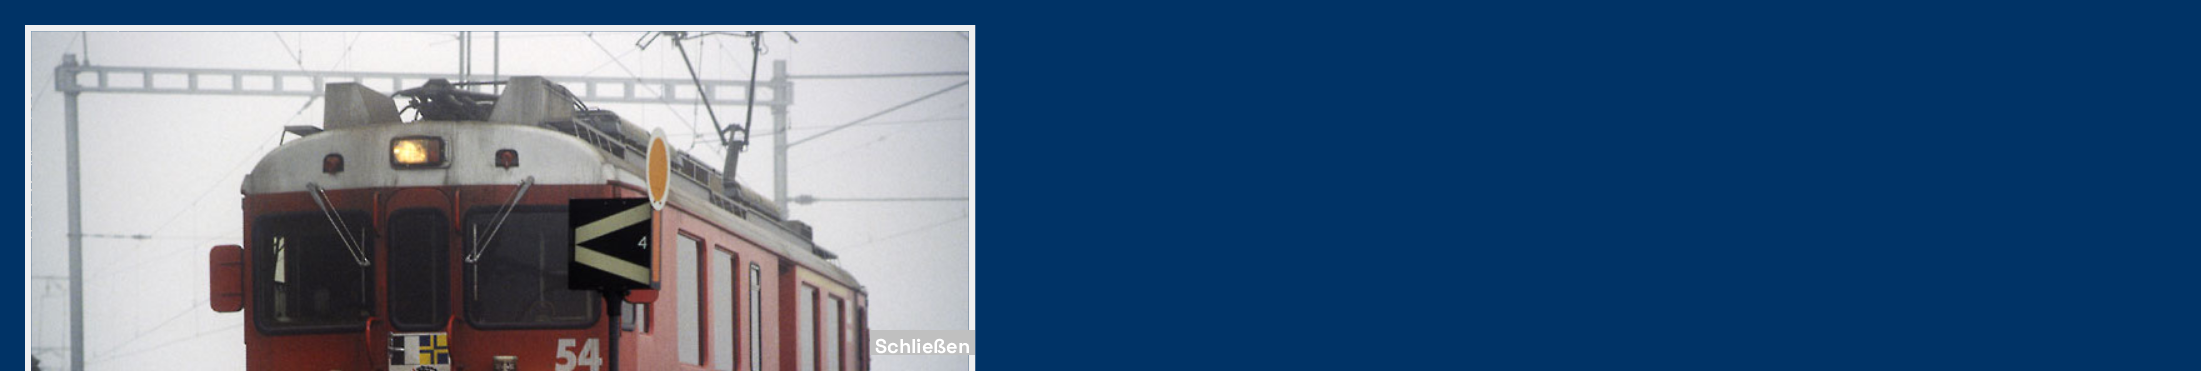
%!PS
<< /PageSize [2201 371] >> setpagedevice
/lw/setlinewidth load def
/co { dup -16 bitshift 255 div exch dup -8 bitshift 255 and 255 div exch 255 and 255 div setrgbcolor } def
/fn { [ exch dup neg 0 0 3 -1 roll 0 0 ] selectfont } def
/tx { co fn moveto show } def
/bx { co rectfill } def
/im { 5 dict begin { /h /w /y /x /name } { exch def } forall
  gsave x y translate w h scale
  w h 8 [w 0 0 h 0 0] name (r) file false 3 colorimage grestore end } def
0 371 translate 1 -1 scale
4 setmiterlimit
0 0 2201 371 16#003366 bx
(media/2.raw) 31 31 88 88 im
16#EFEFEF co
6 lw
28 28 944 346 rectstroke
(media/1.raw) 31 31 938 340 im
870 330 105 25 16#C0C0C0 bx
(Schließen) 875 353 /SpaceGrotesk-Bold 20 16#FFFFFF tx
showpage
